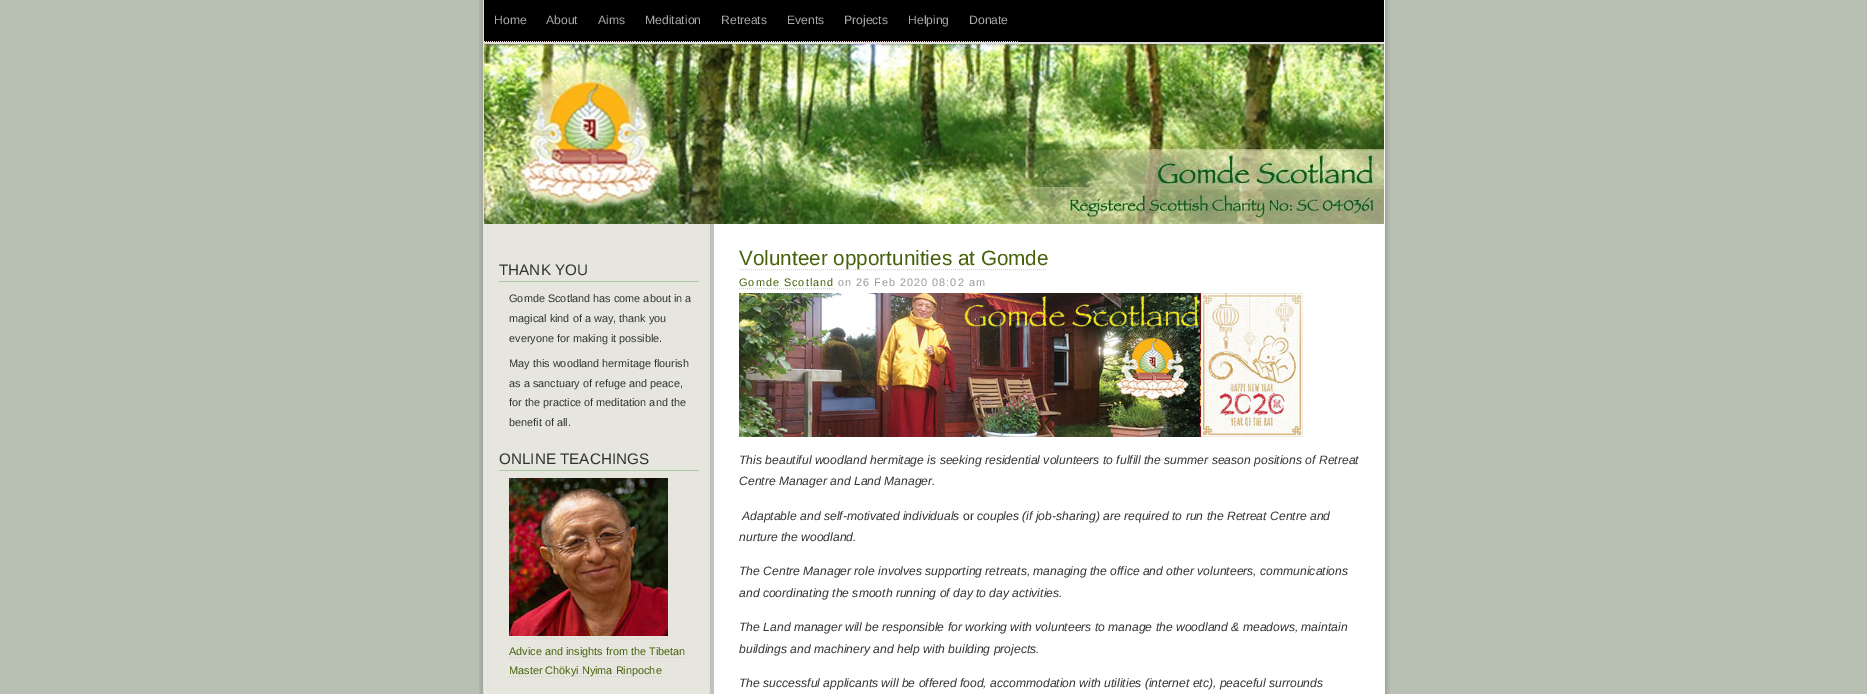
%!PS
<< /PageSize [1867 694] >> setpagedevice
/mt/moveto load def
/li/lineto load def
/st/stroke load def
/co { dup -16 bitshift 255 div exch dup -8 bitshift 255 and 255 div exch 255 and 255 div setrgbcolor } def
/fn { [ exch dup neg 0 0 3 -1 roll 0 0 ] selectfont } def
/tx { co fn moveto show } def
/bx { co rectfill } def
/im { 5 dict begin { /h /w /y /x /name } { exch def } forall
  gsave x y translate w h scale
  w h 8 [w 0 0 h 0 0] name (r) file false 3 colorimage grestore end } def
0 694 translate 1 -1 scale
4 setmiterlimit
0 0 1867 694 16#B8C0B3 bx
(media/1.raw) 479 0 911 694 im
484 0 900 42 16#000000 bx
16#EECCCC co
[1 1] 0 setdash
484 41.5 mt 536 41.5 li st
536 41.5 mt 588 41.5 li st
588 41.5 mt 635 41.5 li st
635 41.5 mt 711 41.5 li st
711 41.5 mt 777 41.5 li st
777 41.5 mt 834 41.5 li st
834 41.5 mt 898 41.5 li st
898 41.5 mt 959 41.5 li st
959 41.5 mt 1018 41.5 li st
(media/2.raw) 484 44 900 180 im
484 42 900 2 16#DDDDDD bx
499 281 200 1 16#AACCAA bx
499 470 200 1 16#AACCAA bx
(media/3.raw) 509 478 159 158 im
16#EECCCC co
509 638.5 mt 668 638.5 li st
509 657.5 mt 686 657.5 li st
509 676.5 mt 663 676.5 li st
739 269.5 mt 1047 269.5 li st
739 288.5 mt 834 288.5 li st
(media/4.raw) 739 293 564 144 im
(Home) 494 24 /LiberationSans-Regular 12.15 16#AAAAAA tx
(About) 546 24 /LiberationSans-Regular 12.15 16#AAAAAA tx
(Aims) 598 24 /LiberationSans-Regular 12.15 16#AAAAAA tx
(Meditation) 645 24 /LiberationSans-Regular 12.15 16#AAAAAA tx
(Retreats) 721 24 /LiberationSans-Regular 12.15 16#AAAAAA tx
(Events) 787 24 /LiberationSans-Regular 12.15 16#AAAAAA tx
(Projects) 844 24 /LiberationSans-Regular 12.15 16#AAAAAA tx
(Helping) 908 24 /LiberationSans-Regular 12.15 16#AAAAAA tx
(Donate) 969 24 /LiberationSans-Regular 12.15 16#AAAAAA tx
(THANK YOU) 499 275 /LiberationSans-Regular 15.25 16#333333 tx
(Gomde Scotland has come about in a) 509 302 /LiberationSans-Regular 10.9 16#333333 tx
(magical kind of a way, thank you) 509 322 /LiberationSans-Regular 10.9 16#333333 tx
(everyone for making it possible.) 509 342 /LiberationSans-Regular 10.9 16#333333 tx
(May this woodland hermitage flourish) 509 367 /LiberationSans-Regular 10.9 16#333333 tx
(as a sanctuary of refuge and peace,) 509 387 /LiberationSans-Regular 10.9 16#333333 tx
(for the practice of meditation and the) 509 406 /LiberationSans-Regular 10.9 16#333333 tx
(benefit of all.) 509 426 /LiberationSans-Regular 10.9 16#333333 tx
(ONLINE TEACHINGS) 499 464 /LiberationSans-Regular 15.25 16#333333 tx
(Advice and insights from the Tibetan) 509 655 /LiberationSans-Regular 10.9 16#47620B tx
(Master Chökyi Nyima Rinpoche) 509 674 /LiberationSans-Regular 10.9 16#47620B tx
(Volunteer opportunities at Gomde) 739 265 /LiberationSans-Regular 20.7 16#47620B tx
/LiberationSans-Regular 10.9 fn
739 286 mt 1 0 (Gomde Scotland) ashow
16#999999 co
838 286 mt 1 0 (on 26 Feb 2020 08:02 am) ashow
(This beautiful woodland hermitage is seeking residential volunteers to fulfill the summer season positions of Retreat) 739 464 /LiberationSans-Italic 12.15 16#333333 tx
(Centre Manager and Land Manager.) 739 485 /LiberationSans-Italic 12.15 16#333333 tx
(Adaptable and self-motivated individuals) 742 520 /LiberationSans-Italic 12.15 16#333333 tx
(or) 963 520 /LiberationSans-Regular 12.15 16#333333 tx
(couples \(if job-sharing\) are required to run the Retreat Centre and) 977 520 /LiberationSans-Italic 12.15 16#333333 tx
(nurture the woodland.) 739 541 /LiberationSans-Italic 12.15 16#333333 tx
(The Centre Manager role involves supporting retreats, managing the office and other volunteers, communications) 739 575 /LiberationSans-Italic 12.15 16#333333 tx
(and coordinating the smooth running of day to day activities.) 739 597 /LiberationSans-Italic 12.15 16#333333 tx
(The Land manager will be responsible for working with volunteers to manage the woodland & meadows, maintain) 739 631 /LiberationSans-Italic 12.15 16#333333 tx
(buildings and machinery and help with building projects.) 739 653 /LiberationSans-Italic 12.15 16#333333 tx
(The successful applicants will be offered food, accommodation with utilities \(internet etc\), peaceful surrounds) 739 687 /LiberationSans-Italic 12.15 16#333333 tx
showpage
